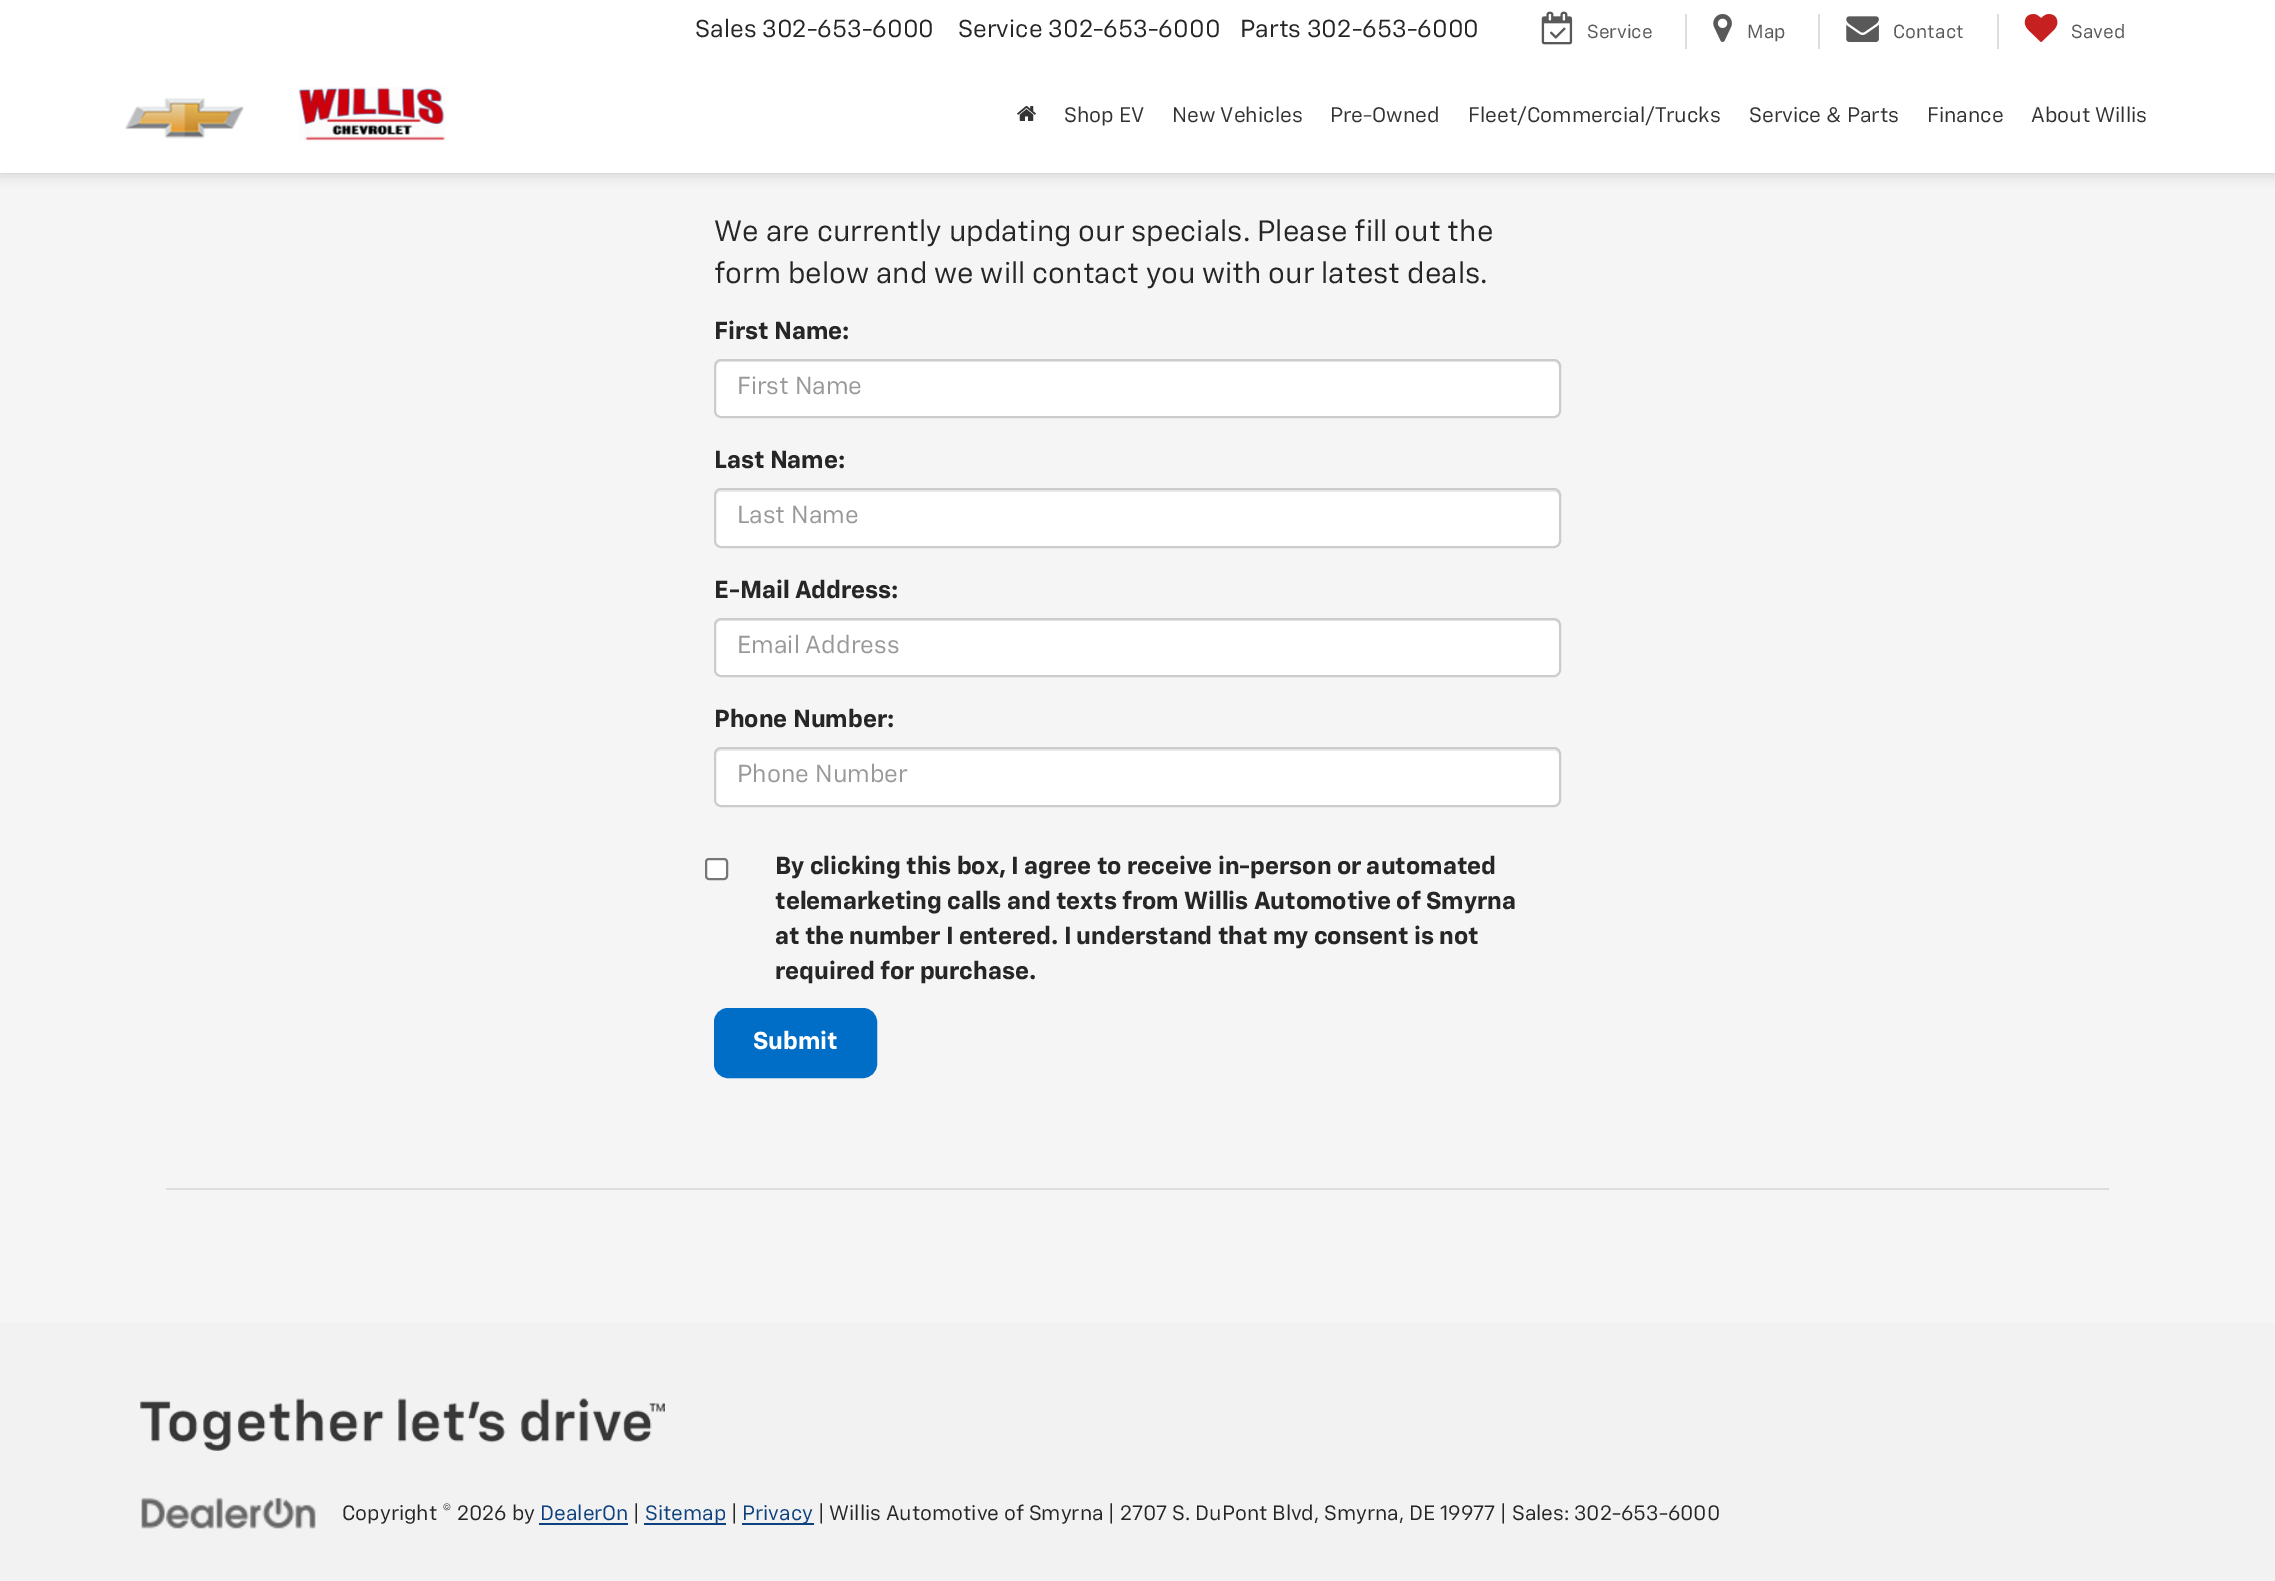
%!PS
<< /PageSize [2275 1581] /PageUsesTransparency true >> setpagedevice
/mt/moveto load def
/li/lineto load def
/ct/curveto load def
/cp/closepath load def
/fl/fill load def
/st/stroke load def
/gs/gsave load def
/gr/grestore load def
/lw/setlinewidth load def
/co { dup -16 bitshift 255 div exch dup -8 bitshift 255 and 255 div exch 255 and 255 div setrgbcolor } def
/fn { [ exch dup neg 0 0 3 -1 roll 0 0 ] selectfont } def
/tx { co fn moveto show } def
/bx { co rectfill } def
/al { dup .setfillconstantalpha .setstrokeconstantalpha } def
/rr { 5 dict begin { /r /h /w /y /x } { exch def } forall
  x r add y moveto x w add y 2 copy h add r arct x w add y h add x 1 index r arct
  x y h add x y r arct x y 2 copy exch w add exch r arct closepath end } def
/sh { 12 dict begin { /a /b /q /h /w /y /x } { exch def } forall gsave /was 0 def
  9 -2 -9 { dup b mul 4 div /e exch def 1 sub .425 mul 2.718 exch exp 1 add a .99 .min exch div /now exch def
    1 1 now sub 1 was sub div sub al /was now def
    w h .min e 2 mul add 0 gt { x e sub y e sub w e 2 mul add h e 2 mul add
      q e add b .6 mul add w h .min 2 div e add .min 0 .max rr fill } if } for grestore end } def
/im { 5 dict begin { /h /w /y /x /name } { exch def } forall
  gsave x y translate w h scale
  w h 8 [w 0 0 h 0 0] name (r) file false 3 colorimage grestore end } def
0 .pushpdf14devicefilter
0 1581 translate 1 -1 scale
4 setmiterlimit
0 0 2275 1581 16#F5F5F5 bx
16#000000 co
0 0 2275 173 0 7 .2 sh
0 0 2275 173 16#FFFFFF bx
(media/1.raw) 1541 11 32 34 im
1685 14 2 35 16#DDDDDD bx
(media/2.raw) 1713 14 19 28 im
1818 14 2 35 16#DDDDDD bx
(media/3.raw) 1846 16 33 26 im
1997 14 2 35 16#DDDDDD bx
(media/4.raw) 2024 14 34 28 im
(media/5.raw) 125 98 119 41 im
(media/6.raw) 298 87 148 54 im
(media/7.raw) 1017 106 19 15 im
16#FFFFFF co
714 359 847 59 7 rr fl
16#ECECEC co
721 362 mt 1554 362 li 1557 362 1559 365 1559 368 ct 1559 366 li 1559 363 1557 361 1554 361 ct 721 361 li 718 361 716 363 716 366 ct 716 368 li 716 365 718 362 721 362 ct cp fl
16#CCCCCC co
2 lw
715 360 845 57 6 rr st
16#FFFFFF co
714 488 847 60 7 rr fl
16#ECECEC co
721 492 mt 1554 492 li 1557 492 1559 494 1559 497 ct 1559 495 li 1559 492 1557 490 1554 490 ct 721 490 li 718 490 716 492 716 495 ct 716 497 li 716 494 718 492 721 492 ct cp fl
16#CCCCCC co
715 489 845 58 6 rr st
16#FFFFFF co
714 618 847 59 7 rr fl
16#ECECEC co
721 621 mt 1554 621 li 1557 621 1559 624 1559 626 ct 1559 625 li 1559 622 1557 620 1554 620 ct 721 620 li 718 620 716 622 716 625 ct 716 626 li 716 624 718 621 721 621 ct cp fl
16#CCCCCC co
715 619 845 57 6 rr st
16#FFFFFF co
714 747 847 60 7 rr fl
16#ECECEC co
721 751 mt 1554 751 li 1557 751 1559 753 1559 756 ct 1559 754 li 1559 751 1557 749 1554 749 ct 721 749 li 718 749 716 751 716 754 ct 716 756 li 716 753 718 751 721 751 ct cp fl
16#CCCCCC co
715 748 845 58 6 rr st
16#FFFFFF co
706 859 21 20 3 rr gs fl gr
16#767676 co
st
16#006DC7 co
716 1010 159 66 12 rr gs fl gr
4 lw
st
166 1188 1943 2 16#DDDDDD bx
0 1323 2275 258 16#F2F2F2 bx
(media/8.raw) 140 1398 525 53 im
(media/9.raw) 141 1497 175 32 im
539 1523 89 2 16#0E4180 bx
644 1523 82 2 16#0E4180 bx
742 1523 72 2 16#0E4180 bx
(Sales 302-653-6000) 695 37 /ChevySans-Regular 24.5 16#262626 tx
(Service 302-653-6000) 958 37 /ChevySans-Regular 24.5 16#262626 tx
(Parts 302-653-6000) 1240 37 /ChevySans-Regular 24.5 16#262626 tx
(Service) 1587 38 /ChevySans-Regular 19 16#595959 tx
(Map) 1747 38 /ChevySans-Regular 19 16#595959 tx
(Contact) 1893 38 /ChevySans-Regular 19 16#595959 tx
(Saved) 2071 38 /ChevySans-Regular 19 16#595959 tx
(Shop EV) 1064 122 /ChevySans-Regular 21 16#333333 tx
(New Vehicles) 1172 122 /ChevySans-Regular 21 16#333333 tx
(Pre-Owned) 1330 122 /ChevySans-Regular 21 16#333333 tx
(Fleet/Commercial/Trucks) 1468 122 /ChevySans-Regular 21 16#333333 tx
(Service & Parts) 1749 122 /ChevySans-Regular 21 16#333333 tx
(Finance) 1927 122 /ChevySans-Regular 21 16#333333 tx
(About Willis) 2031 122 /ChevySans-Regular 21 16#333333 tx
(We are currently updating our specials. Please fill out the) 714 241 /ChevySans-Regular 29.4 16#262626 tx
(form below and we will contact you with our latest deals.) 714 283 /ChevySans-Regular 29.4 16#262626 tx
(First Name:) 714 339 /ChevySans-Bold 24.5 16#262626 tx
(First Name) 737 394 /ChevySans-Regular 24.5 16#999999 tx
(Last Name:) 714 468 /ChevySans-Bold 24.5 16#262626 tx
(Last Name) 737 523 /ChevySans-Regular 24.5 16#999999 tx
(E-Mail Address:) 714 598 /ChevySans-Bold 24.5 16#262626 tx
(Email Address) 737 653 /ChevySans-Regular 24.5 16#999999 tx
(Phone Number:) 714 727 /ChevySans-Bold 24.5 16#262626 tx
(Phone Number) 737 782 /ChevySans-Regular 24.5 16#999999 tx
(By clicking this box, I agree to receive in-person or automated) 775 874 /ChevySans-Bold 24.5 16#262626 tx
(telemarketing calls and texts from Willis Automotive of Smyrna) 775 909 /ChevySans-Bold 24.5 16#262626 tx
(at the number I entered. I understand that my consent is not) 775 944 /ChevySans-Bold 24.5 16#262626 tx
(required for purchase.) 775 979 /ChevySans-Bold 24.5 16#262626 tx
(Submit) 753 1049 /ChevySans-Bold 24.5 16#FFFFFF tx
(Copyright © 2026 by) 342 1520 /ChevySans-Regular 20.8 16#262626 tx
(DealerOn) 540 1520 /ChevySans-Regular 20.8 16#0E4180 tx
(|) 633 1520 /ChevySans-Regular 20.8 16#262626 tx
(Sitemap) 645 1520 /ChevySans-Regular 20.8 16#0E4180 tx
(|) 731 1520 /ChevySans-Regular 20.8 16#262626 tx
(Privacy) 742 1520 /ChevySans-Regular 20.8 16#0E4180 tx
(| Willis Automotive of Smyrna | 2707 S. DuPont Blvd, Smyrna, DE 19977 | Sales: 302-653-6000) 818 1520 /ChevySans-Regular 20.8 16#262626 tx
.poppdf14devicefilter showpage
